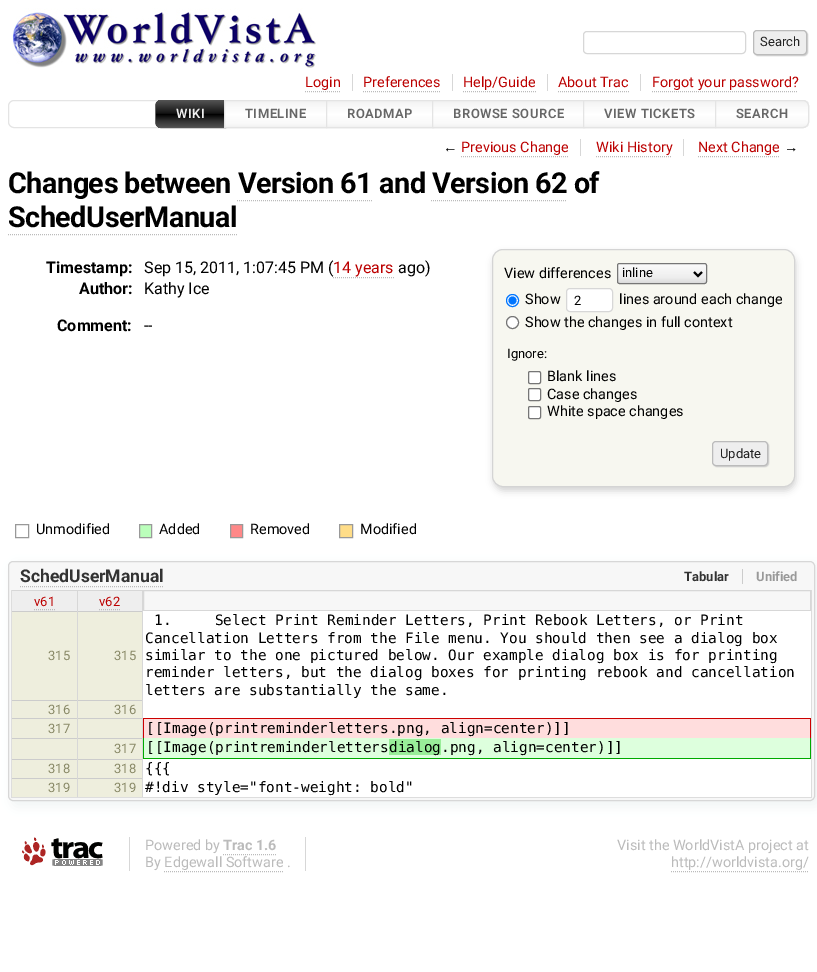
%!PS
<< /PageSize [817 972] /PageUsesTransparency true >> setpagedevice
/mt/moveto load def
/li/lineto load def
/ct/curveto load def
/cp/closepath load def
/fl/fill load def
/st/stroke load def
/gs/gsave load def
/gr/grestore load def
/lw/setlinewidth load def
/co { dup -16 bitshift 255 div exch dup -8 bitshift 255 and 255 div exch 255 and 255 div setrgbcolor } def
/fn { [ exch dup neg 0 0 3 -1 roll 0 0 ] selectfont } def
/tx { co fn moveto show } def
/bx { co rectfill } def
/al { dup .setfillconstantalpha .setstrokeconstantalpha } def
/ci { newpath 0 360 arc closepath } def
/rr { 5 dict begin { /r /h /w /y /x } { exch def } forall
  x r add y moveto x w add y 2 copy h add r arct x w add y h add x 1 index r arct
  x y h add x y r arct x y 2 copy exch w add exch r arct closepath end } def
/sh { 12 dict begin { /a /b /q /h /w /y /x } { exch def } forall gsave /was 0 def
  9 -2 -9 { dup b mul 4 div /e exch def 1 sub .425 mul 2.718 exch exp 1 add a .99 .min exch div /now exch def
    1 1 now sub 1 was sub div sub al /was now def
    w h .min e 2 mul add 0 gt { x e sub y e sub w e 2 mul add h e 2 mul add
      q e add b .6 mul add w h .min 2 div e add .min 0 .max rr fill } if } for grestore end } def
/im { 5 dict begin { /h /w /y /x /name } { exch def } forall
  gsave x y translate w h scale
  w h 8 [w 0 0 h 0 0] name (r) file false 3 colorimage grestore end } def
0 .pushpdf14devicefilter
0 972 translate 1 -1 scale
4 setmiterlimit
0 0 817 972 16#FFFFFF bx
(media/1.raw) 12 8 307 60 im
16#D7D7D7 co
583.5 31.5 162 22 3.5 rr st
16#CCCCCC co
754 31 54 25 4 .5 1 sh
16#EEEEEE co
753.5 30.5 53 24 3.5 rr gs fl gr
16#BBBBBB co
st
352 74 1 17 16#D7D7D7 bx
16#BBBBBB co
[1 1] 0 setdash
305 91.5 mt 341 91.5 li st
452 74 1 17 16#D7D7D7 bx
16#BBBBBB co
363 91.5 mt 441 91.5 li st
547 74 1 17 16#D7D7D7 bx
16#BBBBBB co
463 91.5 mt 536 91.5 li st
640 74 1 17 16#D7D7D7 bx
16#BBBBBB co
558 91.5 mt 629 91.5 li st
652 91.5 mt 798 91.5 li st
16#E4E4E4 co
[] 0 setdash
8.5 100.5 800 27 5.5 rr st
16#666666 co
161 100.5 mt 225.5 100.5 li 225.5 127.5 li 161 127.5 li 158 127.5 155.5 125 155.5 122 ct 155.5 106 li 155.5 103 158 100.5 161 100.5 ct cp st
gs 162 100 mt 225 100 li 225 128 li 162 128 li 158.5 128 156 125.5 156 122 ct 156 106 li 156 102.5 158.5 100 162 100 ct cp clip newpath
<< /ShadingType 2 /ColorSpace /DeviceRGB /Coords [191 100 191 128] /Extend [true true] /Function << /FunctionType 3 /Domain [0 1] /Functions [<< /FunctionType 2 /Domain [0 1] /C0 [.333 .333 .333] /C1 [.2 .2 .2] /N 1 >> << /FunctionType 2 /Domain [0 1] /C0 [.2 .2 .2] /C1 [.067 .067 .067] /N 1 >> << /FunctionType 2 /Domain [0 1] /C0 [.067 .067 .067] /C1 [0 0 0] /N 1 >> << /FunctionType 2 /Domain [0 1] /C0 [0 0 0] /C1 [.2 .2 .2] /N 1 >> << /FunctionType 2 /Domain [0 1] /C0 [.2 .2 .2] /C1 [.333 .333 .333] /N 1 >>] /Bounds [.25 .49 .51 .75] /Encode [0 1 0 1 0 1 0 1 0 1] >> >> shfill gr
gs 225 101 mt 326 101 li 326 127 li 225 127 li cp clip newpath
<< /ShadingType 2 /ColorSpace /DeviceRGB /Coords [276 101 276 127] /Extend [true true] /Function << /FunctionType 3 /Domain [0 1] /Functions [<< /FunctionType 2 /Domain [0 1] /C0 [.949 .949 .949] /C1 [.98 .98 .98] /N 1 >> << /FunctionType 2 /Domain [0 1] /C0 [.98 .98 .98] /C1 [.996 .996 .996] /N 1 >> << /FunctionType 2 /Domain [0 1] /C0 [.996 .996 .996] /C1 [1 1 1] /N 1 >> << /FunctionType 2 /Domain [0 1] /C0 [1 1 1] /C1 [.98 .98 .98] /N 1 >> << /FunctionType 2 /Domain [0 1] /C0 [.98 .98 .98] /C1 [.949 .949 .949] /N 1 >>] /Bounds [.25 .49 .51 .85] /Encode [0 1 0 1 0 1 0 1 0 1] >> >> shfill gr
16#E4E4E4 co
224.5 100.5 102 27 rectstroke
gs 327 101 mt 432 101 li 432 127 li 327 127 li cp clip newpath
<< /ShadingType 2 /ColorSpace /DeviceRGB /Coords [380 101 380 127] /Extend [true true] /Function << /FunctionType 3 /Domain [0 1] /Functions [<< /FunctionType 2 /Domain [0 1] /C0 [.949 .949 .949] /C1 [.98 .98 .98] /N 1 >> << /FunctionType 2 /Domain [0 1] /C0 [.98 .98 .98] /C1 [.996 .996 .996] /N 1 >> << /FunctionType 2 /Domain [0 1] /C0 [.996 .996 .996] /C1 [1 1 1] /N 1 >> << /FunctionType 2 /Domain [0 1] /C0 [1 1 1] /C1 [.98 .98 .98] /N 1 >> << /FunctionType 2 /Domain [0 1] /C0 [.98 .98 .98] /C1 [.949 .949 .949] /N 1 >>] /Bounds [.25 .49 .51 .85] /Encode [0 1 0 1 0 1 0 1 0 1] >> >> shfill gr
326.5 100.5 107 27 rectstroke
gs 433 101 mt 583 101 li 583 127 li 433 127 li cp clip newpath
<< /ShadingType 2 /ColorSpace /DeviceRGB /Coords [509 101 509 127] /Extend [true true] /Function << /FunctionType 3 /Domain [0 1] /Functions [<< /FunctionType 2 /Domain [0 1] /C0 [.949 .949 .949] /C1 [.98 .98 .98] /N 1 >> << /FunctionType 2 /Domain [0 1] /C0 [.98 .98 .98] /C1 [.996 .996 .996] /N 1 >> << /FunctionType 2 /Domain [0 1] /C0 [.996 .996 .996] /C1 [1 1 1] /N 1 >> << /FunctionType 2 /Domain [0 1] /C0 [1 1 1] /C1 [.98 .98 .98] /N 1 >> << /FunctionType 2 /Domain [0 1] /C0 [.98 .98 .98] /C1 [.949 .949 .949] /N 1 >>] /Bounds [.25 .49 .51 .85] /Encode [0 1 0 1 0 1 0 1 0 1] >> >> shfill gr
432.5 100.5 152 27 rectstroke
gs 584 101 mt 715 101 li 715 127 li 584 127 li cp clip newpath
<< /ShadingType 2 /ColorSpace /DeviceRGB /Coords [650 101 650 127] /Extend [true true] /Function << /FunctionType 3 /Domain [0 1] /Functions [<< /FunctionType 2 /Domain [0 1] /C0 [.949 .949 .949] /C1 [.98 .98 .98] /N 1 >> << /FunctionType 2 /Domain [0 1] /C0 [.98 .98 .98] /C1 [.996 .996 .996] /N 1 >> << /FunctionType 2 /Domain [0 1] /C0 [.996 .996 .996] /C1 [1 1 1] /N 1 >> << /FunctionType 2 /Domain [0 1] /C0 [1 1 1] /C1 [.98 .98 .98] /N 1 >> << /FunctionType 2 /Domain [0 1] /C0 [.98 .98 .98] /C1 [.949 .949 .949] /N 1 >>] /Bounds [.25 .49 .51 .85] /Encode [0 1 0 1 0 1 0 1 0 1] >> >> shfill gr
583.5 100.5 132 27 rectstroke
gs
715 100 mt 803 100 li 806.5 100 809 102.5 809 106 ct 809 122 li 809 125.5 806.5 128 803 128 ct 715 128 li cp clip newpath
gs 716 101 mt 809 101 li 809 127 li 716 127 li cp clip newpath
<< /ShadingType 2 /ColorSpace /DeviceRGB /Coords [762 101 762 127] /Extend [true true] /Function << /FunctionType 3 /Domain [0 1] /Functions [<< /FunctionType 2 /Domain [0 1] /C0 [.949 .949 .949] /C1 [.98 .98 .98] /N 1 >> << /FunctionType 2 /Domain [0 1] /C0 [.98 .98 .98] /C1 [.996 .996 .996] /N 1 >> << /FunctionType 2 /Domain [0 1] /C0 [.996 .996 .996] /C1 [1 1 1] /N 1 >> << /FunctionType 2 /Domain [0 1] /C0 [1 1 1] /C1 [.98 .98 .98] /N 1 >> << /FunctionType 2 /Domain [0 1] /C0 [.98 .98 .98] /C1 [.949 .949 .949] /N 1 >>] /Bounds [.25 .49 .51 .85] /Encode [0 1 0 1 0 1 0 1 0 1] >> >> shfill gr
gr
715.5 100.5 mt 803 100.5 li 806 100.5 808.5 103 808.5 106 ct 808.5 122 li 808.5 125 806 127.5 803 127.5 ct 715.5 127.5 li cp st
580 139 1 17 16#D7D7D7 bx
16#BBBBBB co
[1 1] 0 setdash
461 156.5 mt 569 156.5 li st
683 139 1 17 16#D7D7D7 bx
16#BBBBBB co
596 156.5 mt 672 156.5 li st
698 156.5 mt 780 156.5 li st
237 200.5 mt 372 200.5 li st
431 200.5 mt 566 200.5 li st
8 234.5 mt 237 234.5 li st
333 277.5 mt 394 277.5 li st
16#D4D4D4 co
493 253 303 238 11 3.5 1 sh
16#F7F7F0 co
492.5 249.5 302 237 10.5 rr gs fl gr
16#D4D4D4 co
[] 0 setdash
st
gs
617 263 90 21 2.5 rr clip newpath
gs 617 264 mt 707 264 li 707 283 li 617 283 li cp clip newpath
<< /ShadingType 2 /ColorSpace /DeviceRGB /Coords [662 283 662 264] /Extend [true true] /Function << /FunctionType 3 /Domain [0 1] /Functions [<< /FunctionType 2 /Domain [0 1] /C0 [.859 .859 .859] /C1 [.933 .933 .933] /N 1 >> << /FunctionType 2 /Domain [0 1] /C0 [.933 .933 .933] /C1 [.984 .984 .984] /N 1 >>] /Bounds [.3] /Encode [0 1 0 1] >> >> shfill gr
gr
16#767676 co
617.5 263.5 89 20 2 rr st
16#000000 co
2 lw
694 272 mt 698 276 li 702 272 li st
16#FFFFFF co
512.5 300.5 6 ci gs fl gr
16#0075FF co
1 lw
st
512.5 300.5 4 ci fl
16#FFFFFF co
566.5 288.5 46 23 3.5 rr gs fl gr
16#D7D7D7 co
st
16#FFFFFF co
512.5 322.5 6 ci gs fl gr
16#767676 co
st
16#FFFFFF co
528.5 371.5 12 12 1.5 rr gs fl gr
16#767676 co
st
16#FFFFFF co
528.5 388.5 12 12 1.5 rr gs fl gr
16#767676 co
st
16#FFFFFF co
528.5 406.5 12 12 1.5 rr gs fl gr
16#767676 co
st
16#CCCCCC co
713 442 56 25 4 .5 1 sh
16#EEEEEE co
712.5 441.5 55 24 3.5 rr gs fl gr
16#BBBBBB co
st
16#999999 co
15.5 524.5 13 13 rectstroke
16#BBFFBB co
139.5 524.5 mt 151.5 524.5 li 151.5 537.5 li 139.5 537.5 li cp gs fl gr
16#999999 co
st
16#FF8888 co
230.5 524.5 mt 242.5 524.5 li 242.5 537.5 li 230.5 537.5 li cp gs fl gr
16#999999 co
st
16#FFDD88 co
339.5 524.5 mt 352.5 524.5 li 352.5 537.5 li 339.5 537.5 li cp gs fl gr
16#999999 co
st
16#D2D7DC co
11 564 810 243 6 6 .3 sh
16#F7F7F7 co
8.5 561.5 806 239 4.5 rr gs fl gr
16#D7D7D7 co
st
16#BBBBBB co
[1 1] 0 setdash
20 586.5 mt 164 586.5 li st
742 569 1 15 16#CCCCCC bx
811 590 1 208 16#DDDDDD bx
11 797 801 1 16#DDDDDD bx
11 590 1 208 16#DDDDDD bx
12 591 65 20 16#EEEEEE bx
12 590 131 1 16#D7D7D7 bx
77 590 1 21 16#D7D7D7 bx
16#BBBBBB co
34 609.5 mt 55 609.5 li st
78 591 64 20 16#EEEEEE bx
142 590 1 21 16#D7D7D7 bx
16#BBBBBB co
99 609.5 mt 120 609.5 li st
16#D7D7D7 co
[] 0 setdash
143.5 590.5 667 20 rectstroke
12 612 65 88 16#EEEEDD bx
12 611 131 1 16#CCCCCC bx
77 611 1 89 16#D7D7D7 bx
78 612 64 88 16#EEEEDD bx
142 611 1 89 16#D7D7D7 bx
143 611 668 107 16#FFFFFF bx
12 701 65 17 16#EEEEDD bx
12 700 131 1 16#CCCCCC bx
77 700 1 18 16#D7D7D7 bx
78 701 64 17 16#EEEEDD bx
142 700 1 18 16#D7D7D7 bx
12 719 65 19 16#EEEEDD bx
12 718 131 1 16#CCCCCC bx
77 718 1 20 16#D7D7D7 bx
78 719 64 19 16#EEEEDD bx
142 718 1 20 16#D7D7D7 bx
144 719 666 19 16#FFDDDD bx
143 718 668 1 16#CC0000 bx
810 718 1 20 16#CC0000 bx
143 718 1 20 16#CC0000 bx
12 739 65 20 16#EEEEDD bx
12 738 131 1 16#CCCCCC bx
77 738 1 21 16#D7D7D7 bx
144 738 666 20 16#DDFFDD bx
810 738 1 21 16#00AA00 bx
143 758 668 1 16#00AA00 bx
143 738 1 21 16#00AA00 bx
389 739 52 16 16#99EE99 bx
78 739 64 20 16#EEEEDD bx
142 738 1 21 16#D7D7D7 bx
12 760 65 18 16#EEEEDD bx
12 759 131 1 16#CCCCCC bx
77 759 1 19 16#D7D7D7 bx
78 760 64 18 16#EEEEDD bx
142 759 1 19 16#D7D7D7 bx
143 759 668 38 16#FFFFFF bx
12 779 65 18 16#EEEEDD bx
12 778 131 1 16#CCCCCC bx
77 778 1 19 16#D7D7D7 bx
78 779 64 18 16#EEEEDD bx
142 778 1 19 16#D7D7D7 bx
(media/2.raw) 22 837 81 29 im
305 837 1 34 16#D7D7D7 bx
129 837 1 34 16#D7D7D7 bx
16#BBBBBB co
[1 1] 0 setdash
223 854.5 mt 277 854.5 li st
164 871.5 mt 283 871.5 li st
671 871.5 mt 809 871.5 li st
(Search) 760 46 /Roboto-Regular 13 16#222222 tx
(Login) 305 87 /Roboto-Regular 14.4 16#BB0000 tx
(Preferences) 363 87 /Roboto-Regular 14.4 16#BB0000 tx
(Help/Guide) 463 87 /Roboto-Regular 14.4 16#BB0000 tx
(About Trac) 558 87 /Roboto-Regular 14.4 16#BB0000 tx
(Forgot your password?) 652 87 /Roboto-Regular 14.4 16#BB0000 tx
/Roboto-SemiBold 13 fn
16#EEEEEE co
176 118 mt .5 0 (WIKI) ashow
16#666666 co
245 118 mt .5 0 (TIMELINE) ashow
347 118 mt .5 0 (ROADMAP) ashow
453 118 mt .5 0 (BROWSE SOURCE) ashow
604 118 mt .5 0 (VIEW TICKETS) ashow
736 118 mt .5 0 (SEARCH) ashow
(←) 443 152 /LiberationSans-Regular 14.4 16#000000 tx
(Previous Change) 461 152 /Roboto-Regular 14.4 16#BB0000 tx
(Wiki History) 596 152 /Roboto-Regular 14.4 16#BB0000 tx
(Next Change) 698 152 /Roboto-Regular 14.4 16#BB0000 tx
(→) 784 152 /LiberationSans-Regular 14.4 16#000000 tx
/Roboto-Bold 28.8 fn
8 193 mt -.5 0 (Changes between Version 61 and Version 62 of) ashow
8 227 mt -.5 0 (SchedUserManual) ashow
(Timestamp:) 46 273 /Roboto-Bold 16 16#000000 tx
(Sep 15, 2011, 1:07:45 PM \() 144 273 /Roboto-Regular 16 16#000000 tx
(14 years) 333 273 /Roboto-Regular 16 16#BB0000 tx
(ago\)) 398 273 /Roboto-Regular 16 16#000000 tx
(Author:) 79 294 /Roboto-Bold 16 16#000000 tx
(Kathy Ice) 144 294 /Roboto-Regular 16 16#000000 tx
(Comment:) 57 331 /Roboto-Bold 16 16#000000 tx
(--) 144 331 /Roboto-Regular 16 16#000000 tx
(View differences) 504 278 /Roboto-Regular 14.4 16#000000 tx
(inline) 622 277 /Roboto-Regular 13 16#000000 tx
(Show) 525 304 /Roboto-Regular 14.4 16#000000 tx
(2) 574 305 /Roboto-Regular 13 16#000000 tx
(lines around each change) 619 304 /Roboto-Regular 14.4 16#000000 tx
(Show the changes in full context) 525 327 /Roboto-Regular 14.4 16#000000 tx
(Ignore:) 507 358 /Roboto-Regular 13 16#000000 tx
(Blank lines) 547 381 /Roboto-Regular 14.4 16#000000 tx
(Case changes) 547 399 /Roboto-Regular 14.4 16#000000 tx
(White space changes) 547 416 /Roboto-Regular 14.4 16#000000 tx
(Update) 720 458 /Roboto-Regular 13 16#222222 tx
(Unmodified) 36 534 /Roboto-Regular 14.4 16#000000 tx
(Added) 159 534 /Roboto-Regular 14.4 16#000000 tx
(Removed) 250 534 /Roboto-Regular 14.4 16#000000 tx
(Modified) 360 534 /Roboto-Regular 14.4 16#000000 tx
(SchedUserManual) 20 582 /Roboto-Bold 17.5 16#333333 tx
(Tabular) 684 581 /Roboto-Bold 13 16#333333 tx
(Unified) 756 581 /Roboto-Bold 13 16#999999 tx
(v61) 34 606 /Roboto-Regular 13 16#BB0000 tx
(v62) 99 606 /Roboto-Regular 13 16#BB0000 tx
(315) 48 660 /Roboto-Regular 13 16#888866 tx
(315) 114 660 /Roboto-Regular 13 16#888866 tx
(1.     Select Print Reminder Letters, Print Rebook Letters, or Print) 154 625 /DejaVuSansMono-Regular 14.4 16#000000 tx
(Cancellation Letters from the File menu. You should then see a dialog box) 145 643 /DejaVuSansMono-Regular 14.4 16#000000 tx
(similar to the one pictured below. Our example dialog box is for printing) 145 660 /DejaVuSansMono-Regular 14.4 16#000000 tx
(reminder letters, but the dialog boxes for printing rebook and cancellation) 145 677 /DejaVuSansMono-Regular 14.4 16#000000 tx
(letters are substantially the same.) 145 695 /DejaVuSansMono-Regular 14.4 16#000000 tx
(316) 48 714 /Roboto-Regular 13 16#888866 tx
(316) 114 714 /Roboto-Regular 13 16#888866 tx
(317) 48 733 /Roboto-Regular 13 16#888866 tx
([[Image\(printreminderletters.png, align=center\)]]) 146 733 /DejaVuSansMono-Regular 14.4 16#000000 tx
([[Image\(printreminderletters) 146 752 /DejaVuSansMono-Regular 14.4 16#000000 tx
(dialog.png, align=center\)]]) 389 752 /DejaVuSansMono-Regular 14.4 16#000000 tx
(317) 114 753 /Roboto-Regular 13 16#888866 tx
(318) 48 773 /Roboto-Regular 13 16#888866 tx
(318) 114 773 /Roboto-Regular 13 16#888866 tx
({{{) 145 773 /DejaVuSansMono-Regular 14.4 16#000000 tx
(319) 48 792 /Roboto-Regular 13 16#888866 tx
(319) 114 792 /Roboto-Regular 13 16#888866 tx
(#!div style="font-weight: bold") 145 792 /DejaVuSansMono-Regular 14.4 16#000000 tx
(Powered by) 145 850 /Roboto-Regular 14.4 16#BBBBBB tx
(Trac 1.6) 223 850 /Roboto-Bold 14.4 16#BBBBBB tx
(By Edgewall Software .) 145 867 /Roboto-Regular 14.4 16#BBBBBB tx
(Visit the WorldVistA project at) 617 850 /Roboto-Regular 14.4 16#BBBBBB tx
(http://worldvista.org/) 671 867 /Roboto-Regular 14.4 16#BBBBBB tx
.poppdf14devicefilter showpage
